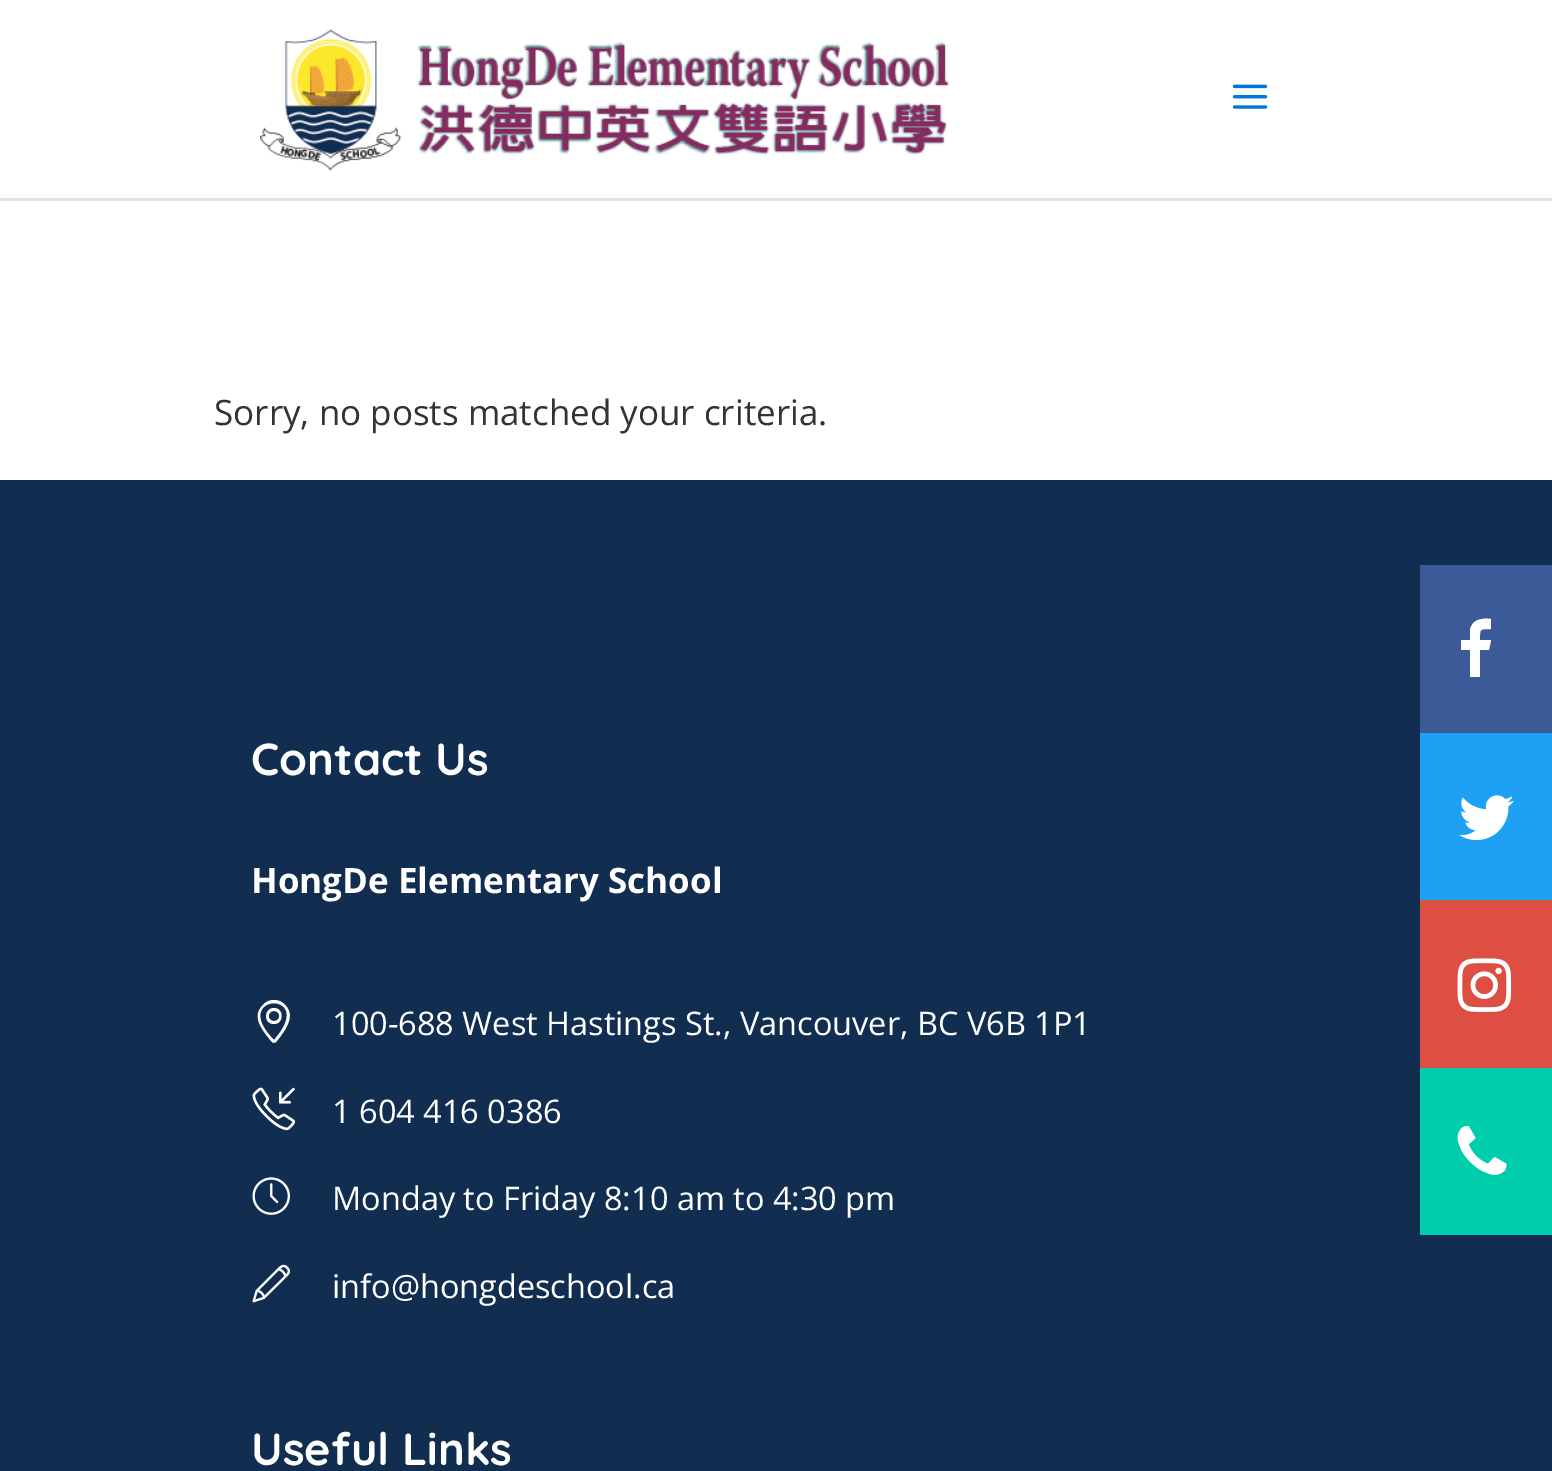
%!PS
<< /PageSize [1552 1471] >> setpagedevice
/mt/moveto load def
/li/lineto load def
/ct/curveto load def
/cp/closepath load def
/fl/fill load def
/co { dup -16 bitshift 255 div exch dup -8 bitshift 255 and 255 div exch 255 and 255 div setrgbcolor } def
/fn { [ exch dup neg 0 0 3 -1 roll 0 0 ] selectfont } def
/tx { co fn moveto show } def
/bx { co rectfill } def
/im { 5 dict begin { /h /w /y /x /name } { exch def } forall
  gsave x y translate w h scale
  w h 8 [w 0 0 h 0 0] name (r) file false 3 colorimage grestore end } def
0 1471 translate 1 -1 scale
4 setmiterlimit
0 0 1552 1471 16#FFFFFF bx
0 198 1552 3 16#E1E1E1 bx
(media/1.raw) 260 29 689 142 im
(media/2.raw) 1232 84 36 25 im
0 480 1552 991 16#112E51 bx
16#FFFFFF co
274 1000 mt 269 1000 265 1002 262 1006 ct 251 1018 264 1032 272 1042 ct 272 1043 276 1043 276 1042 ct 284 1032 296 1017 286 1006 ct 283 1002 279 1000 274 1000 ct cp 274 1040 mt 227 993 319 989 274 1040 ct cp 274 1008 mt 264 1008 263 1024 274 1024 ct 284 1024 284 1008 274 1008 ct cp 274 1021 mt 267 1021 267 1011 274 1011 ct 281 1011 281 1021 274 1021 ct cp fl
(media/3.raw) 252 1087 43 44 im
(media/4.raw) 252 1177 38 38 im
(media/5.raw) 252 1264 38 39 im
1420 565 132 168 16#3C5A98 bx
16#FFFFFF co
1491 619 mt 1491 629 li 1479 629 1480 629 1480 640 ct 1491 640 li 1489 650 li 1480 650 li 1480 677 li 1470 677 li 1470 650 li 1461 650 li 1461 640 li 1470 640 li 1470 630 li 1472 619 1482 618 1491 619 ct cp fl
1420 733 132 167 16#1EA1F2 bx
(media/6.raw) 1459 795 55 45 im
1420 900 132 168 16#DC4F42 bx
(media/7.raw) 1457 958 55 54 im
1420 1068 132 167 16#00CDAC bx
(media/8.raw) 1457 1125 50 50 im
(Sorry, no posts matched your criteria.) 214 425 /OpenSans-Regular 35 16#333333 tx
(Contact Us) 251 775 /Quicksand-Bold 45 16#FFFFFF tx
(HongDe Elementary School) 251 893 /OpenSans-Bold 35 16#FFFFFF tx
(100-688 West Hastings St., Vancouver, BC V6B 1P1) 332 1035 /OpenSans-Regular 32.5 16#FFFFFF tx
(1 604 416 0386) 332 1123 /OpenSans-Regular 32.5 16#FFFFFF tx
(Monday to Friday 8:10 am to 4:30 pm) 332 1210 /OpenSans-Regular 32.5 16#FFFFFF tx
(info@hongdeschool.ca) 332 1298 /OpenSans-Regular 32.5 16#FFFFFF tx
(Useful Links) 251 1465 /Quicksand-Bold 45 16#FFFFFF tx
showpage
